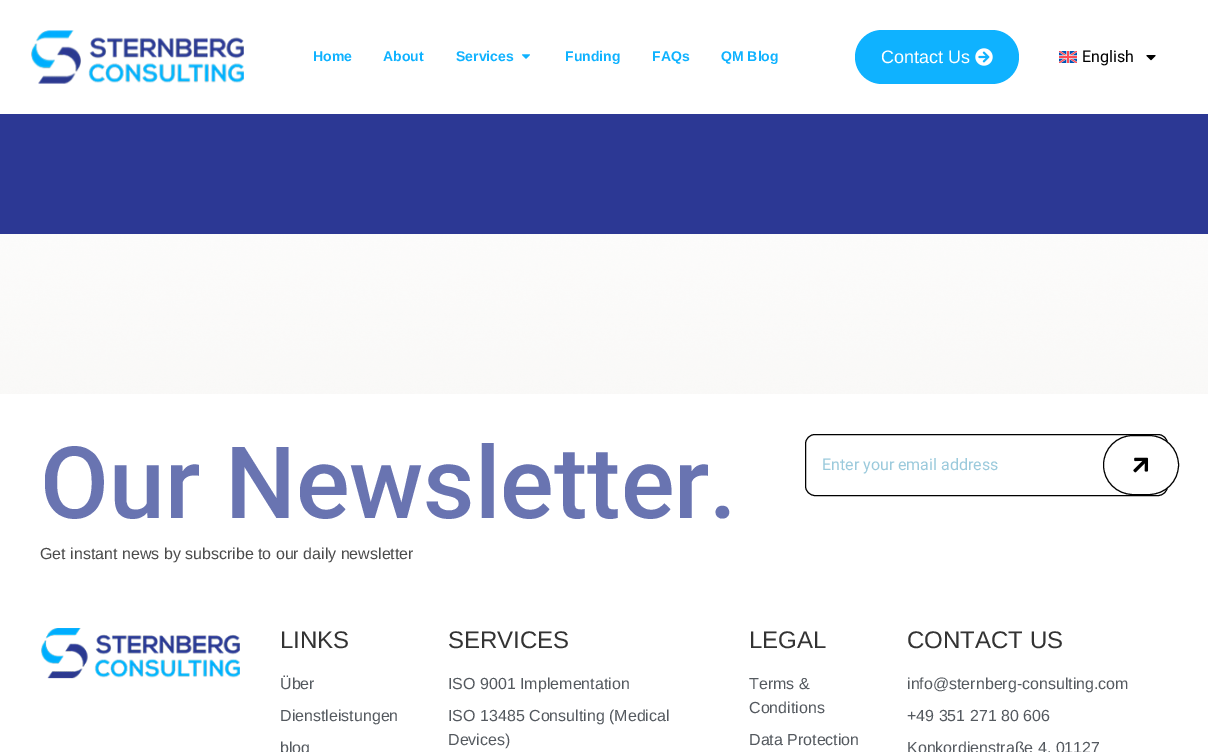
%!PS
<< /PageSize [1208 752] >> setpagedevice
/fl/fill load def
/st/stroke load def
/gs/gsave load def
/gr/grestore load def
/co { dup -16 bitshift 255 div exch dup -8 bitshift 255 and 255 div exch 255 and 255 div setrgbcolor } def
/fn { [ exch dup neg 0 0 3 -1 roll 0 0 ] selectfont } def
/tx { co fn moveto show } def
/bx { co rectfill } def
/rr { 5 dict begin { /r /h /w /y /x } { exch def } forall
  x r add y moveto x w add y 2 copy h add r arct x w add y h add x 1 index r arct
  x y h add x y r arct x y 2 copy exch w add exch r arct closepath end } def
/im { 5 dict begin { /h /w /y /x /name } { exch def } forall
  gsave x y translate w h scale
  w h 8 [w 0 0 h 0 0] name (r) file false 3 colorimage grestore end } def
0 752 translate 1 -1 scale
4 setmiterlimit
0 0 1208 752 16#FFFFFF bx
(media/1.raw) 31 30 213 54 im
(media/2.raw) 522 54 8 5 im
16#0FB2FF co
855 30 164 54 27 rr fl
(media/3.raw) 975 48 18 18 im
(media/4.raw) 1059 51 18 12 im
(media/5.raw) 1146 55 10 6 im
0 114 1208 120 16#2C3894 bx
(media/6.raw) 0 234 1208 160 im
16#000000 co
805.5 434.5 362 61 9.5 rr st
16#FFFFFF co
1103.5 435.5 75 59 29.5 rr gs fl gr
16#000000 co
st
(media/7.raw) 1133 457 16 16 im
(media/8.raw) 41 628 199 51 im
(Home) 313 61 /LiberationSans-Bold 14 16#0FB2FF tx
(About) 383 61 /LiberationSans-Bold 14 16#0FB2FF tx
(Services) 456 61 /LiberationSans-Bold 14 16#0FB2FF tx
(Funding) 565 61 /LiberationSans-Bold 14 16#0FB2FF tx
(FAQs) 652 61 /LiberationSans-Bold 14 16#0FB2FF tx
(QM Blog) 721 61 /LiberationSans-Bold 14 16#0FB2FF tx
(Contact Us) 881 63 /LiberationSans-Regular 18 16#FFFFFF tx
(English) 1082 62 /Roboto-Regular 16 16#000000 tx
(Our Newsletter.) 40 518 /Roboto-Medium 100 16#6974B1 tx
(Get instant news by subscribe to our daily newsletter) 40 559 /LiberationSans-Regular 16 16#4B4B4B tx
(Enter your email address) 822 470 /Roboto-Regular 16 16#9BCADC tx
(LINKS) 280 648 /LiberationSans-Regular 24 16#333333 tx
(Über) 280 689 /LiberationSans-Regular 16 16#54595F tx
(Dienstleistungen) 280 721 /LiberationSans-Regular 16 16#54595F tx
(blog) 280 753 /LiberationSans-Regular 16 16#54595F tx
(SERVICES) 448 648 /LiberationSans-Regular 24 16#333333 tx
(ISO 9001 Implementation) 448 689 /LiberationSans-Regular 16 16#54595F tx
(ISO 13485 Consulting \(Medical) 448 721 /LiberationSans-Regular 16 16#54595F tx
(Devices\)) 448 745 /LiberationSans-Regular 16 16#54595F tx
(LEGAL) 749 648 /LiberationSans-Regular 24 16#333333 tx
(Terms &) 749 689 /LiberationSans-Regular 16 16#54595F tx
(Conditions) 749 713 /LiberationSans-Regular 16 16#54595F tx
(Data Protection) 749 745 /LiberationSans-Regular 16 16#54595F tx
(CONTACT US) 907 648 /LiberationSans-Regular 24 16#333333 tx
(info@sternberg-consulting.com) 907 689 /LiberationSans-Regular 16 16#54595F tx
(+49 351 271 80 606) 907 721 /LiberationSans-Regular 16 16#54595F tx
(Konkordienstraße 4, 01127) 907 753 /LiberationSans-Regular 16 16#54595F tx
showpage
